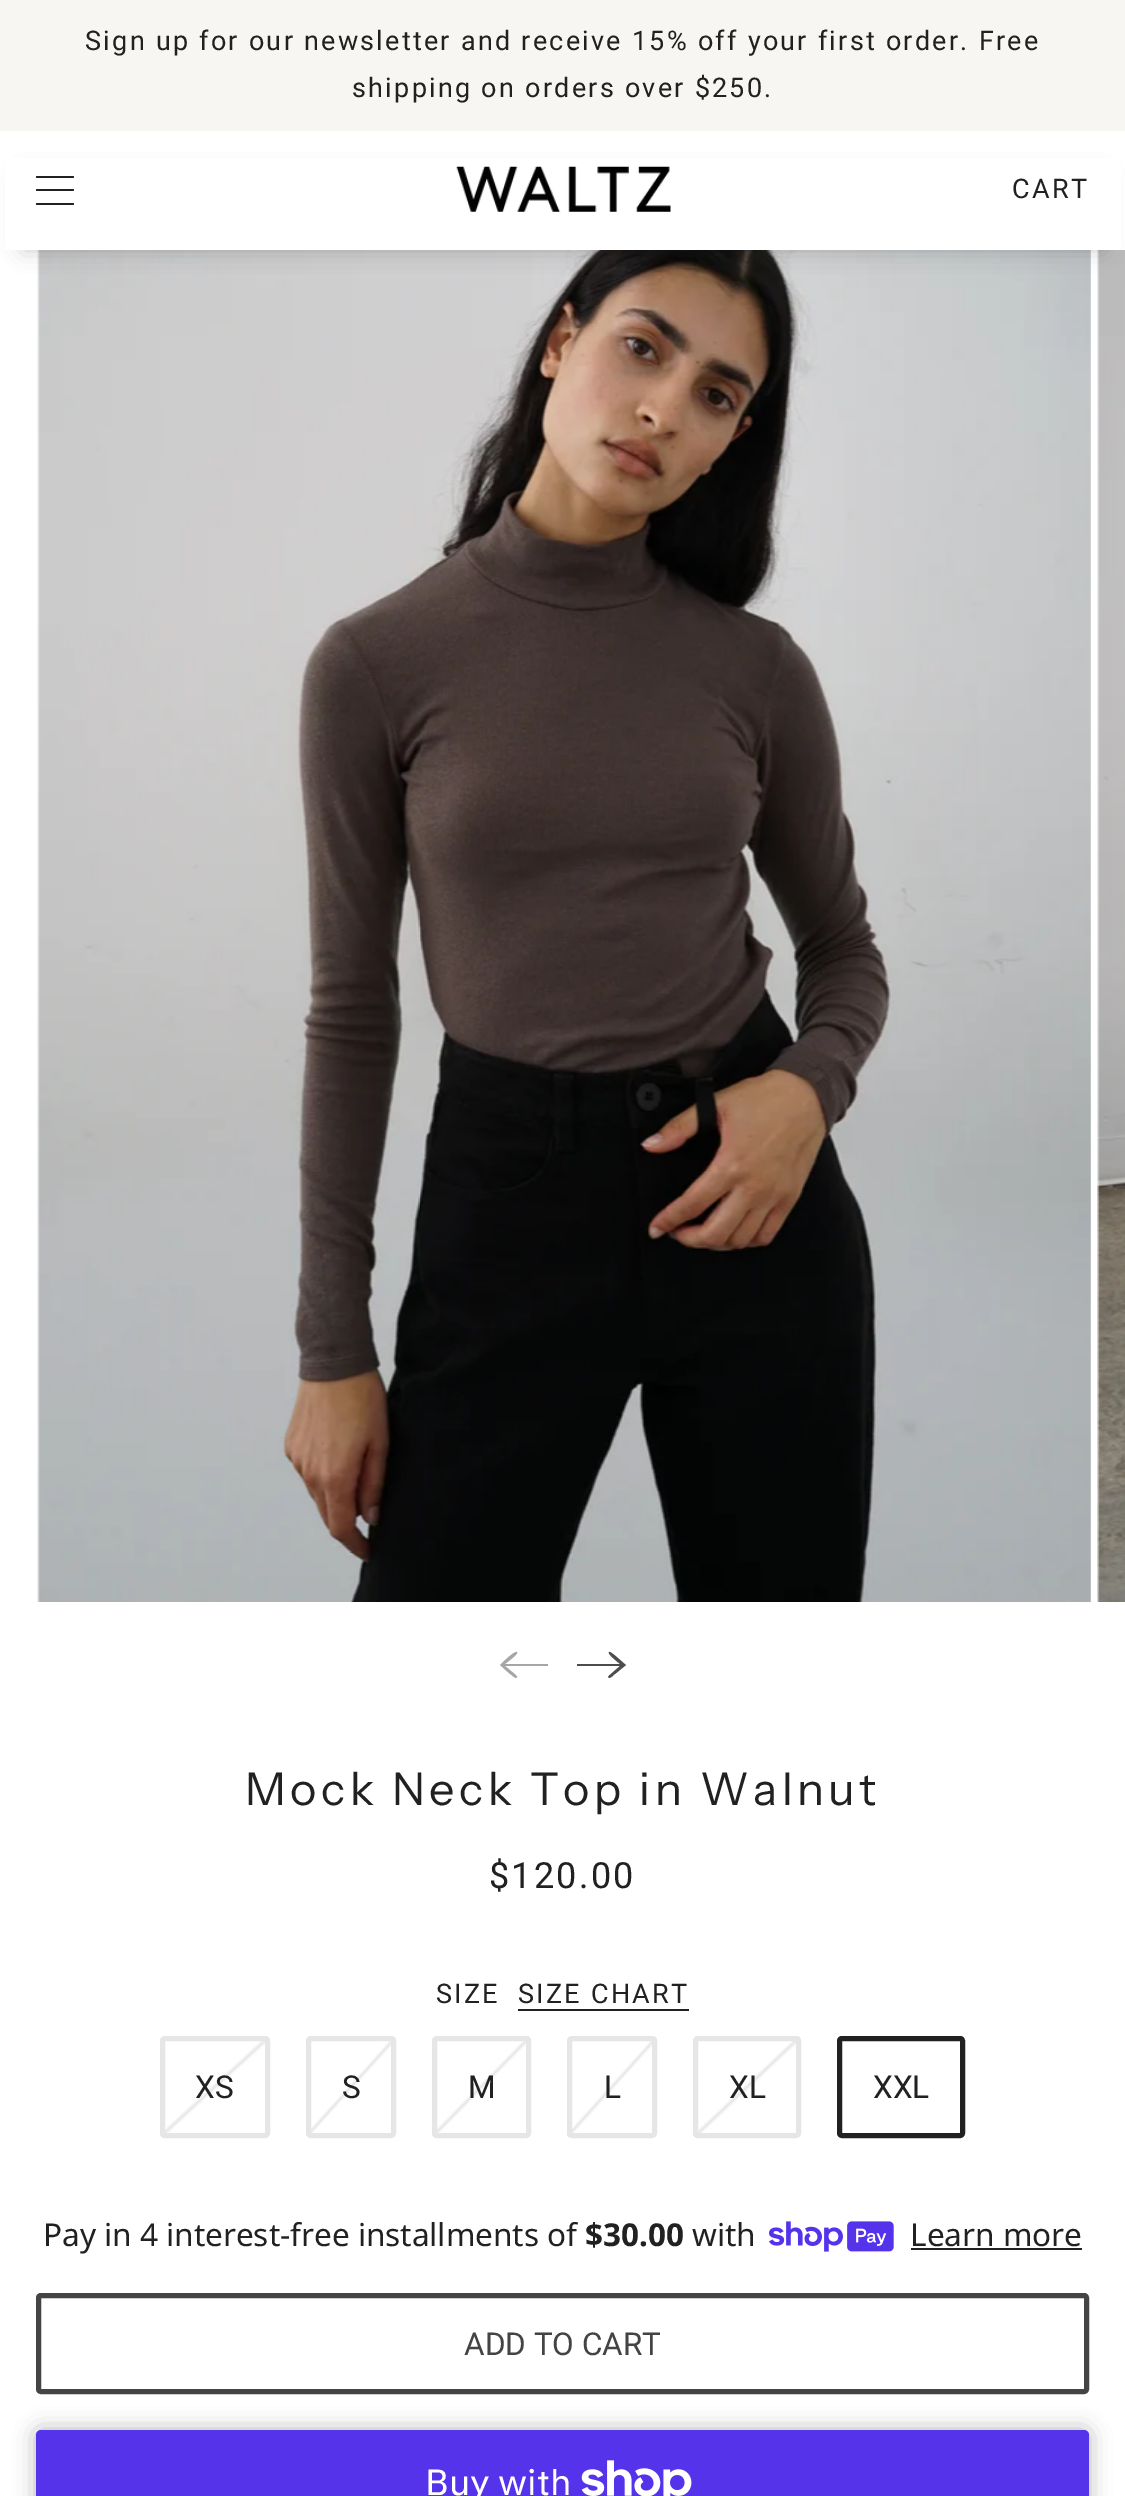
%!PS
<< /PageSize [1125 2496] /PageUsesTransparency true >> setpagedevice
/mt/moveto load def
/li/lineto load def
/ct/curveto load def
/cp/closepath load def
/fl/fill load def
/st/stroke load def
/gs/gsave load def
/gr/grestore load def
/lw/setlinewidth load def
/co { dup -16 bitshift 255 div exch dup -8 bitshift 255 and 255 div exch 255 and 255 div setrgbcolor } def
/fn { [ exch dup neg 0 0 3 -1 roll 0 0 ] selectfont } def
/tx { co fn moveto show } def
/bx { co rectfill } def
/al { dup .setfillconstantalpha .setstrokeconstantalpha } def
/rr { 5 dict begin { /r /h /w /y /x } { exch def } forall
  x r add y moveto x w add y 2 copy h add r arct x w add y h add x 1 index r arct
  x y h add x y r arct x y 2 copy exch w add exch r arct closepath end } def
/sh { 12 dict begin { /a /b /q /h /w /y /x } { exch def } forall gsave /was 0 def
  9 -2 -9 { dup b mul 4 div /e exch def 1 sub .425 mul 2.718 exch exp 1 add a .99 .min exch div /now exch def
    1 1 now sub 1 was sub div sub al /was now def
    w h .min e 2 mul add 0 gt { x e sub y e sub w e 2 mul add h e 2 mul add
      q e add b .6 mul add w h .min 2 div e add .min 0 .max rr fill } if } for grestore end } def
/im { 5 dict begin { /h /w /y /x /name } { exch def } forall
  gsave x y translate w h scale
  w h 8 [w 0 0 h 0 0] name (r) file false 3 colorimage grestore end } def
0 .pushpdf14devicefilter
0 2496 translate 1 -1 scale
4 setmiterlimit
0 0 1125 2496 16#FFFFFF bx
0 0 1125 131 16#F7F6F2 bx
(media/2.raw) 37 250 1054 1352 im
(media/3.raw) 1097 250 28 1352 im
16#000000 co
23 176 1080 74 0 11 .2 sh
5 158 1116 92 16#FFFFFF bx
16#212121 co
36 176 38 2 1 rr fl
36 189 38 2 1 rr fl
36 203 38 2 1 rr fl
(media/1.raw) 456 166 215 46 im
16#A6A6A6 co
517 1652 mt 514 1651 502 1663 500 1665 ct 510 1674 li 511 1674 516 1680 517 1677 ct 518 1676 507 1668 505 1666 ct 548 1666 li 548 1664 li 505 1664 li 507 1662 519 1654 517 1652 ct cp fl
16#4D4D4D co
609 1652 mt 611 1651 623 1663 626 1665 ct 615 1674 li 614 1674 610 1680 608 1677 ct 608 1676 618 1668 620 1666 ct 577 1666 li 577 1664 li 620 1664 li 618 1662 607 1654 609 1652 ct cp fl
518 2009 171 2 16#212121 bx
gs 160 2036 110 102 5 rr clip newpath
<< /ShadingType 2 /ColorSpace /DeviceRGB /Coords [265 2142 164 2032] /Extend [true true] /Function << /FunctionType 3 /Domain [0 1] /Functions [<< /FunctionType 2 /Domain [0 1] /C0 [1 1 1] /C1 [1 1 1] /N 1 >> << /FunctionType 2 /Domain [0 1] /C0 [1 1 1] /C1 [.902 .902 .902] /N 1 >> << /FunctionType 2 /Domain [0 1] /C0 [.902 .902 .902] /C1 [1 1 1] /N 1 >> << /FunctionType 2 /Domain [0 1] /C0 [1 1 1] /C1 [1 1 1] /N 1 >>] /Bounds [.48 .5 .52] /Encode [0 1 0 1 0 1 0 1] >> >> shfill gr
16#E6E6E6 co
5 lw
162.5 2038.5 105 97 2.5 rr st
gs 306 2036 90 102 5 rr clip newpath
<< /ShadingType 2 /ColorSpace /DeviceRGB /Coords [401 2132 301 2042] /Extend [true true] /Function << /FunctionType 3 /Domain [0 1] /Functions [<< /FunctionType 2 /Domain [0 1] /C0 [1 1 1] /C1 [1 1 1] /N 1 >> << /FunctionType 2 /Domain [0 1] /C0 [1 1 1] /C1 [.902 .902 .902] /N 1 >> << /FunctionType 2 /Domain [0 1] /C0 [.902 .902 .902] /C1 [1 1 1] /N 1 >> << /FunctionType 2 /Domain [0 1] /C0 [1 1 1] /C1 [1 1 1] /N 1 >>] /Bounds [.48 .5 .52] /Encode [0 1 0 1 0 1 0 1] >> >> shfill gr
308.5 2038.5 85 97 2.5 rr st
gs 432 2036 99 102 5 rr clip newpath
<< /ShadingType 2 /ColorSpace /DeviceRGB /Coords [532 2136 431 2037] /Extend [true true] /Function << /FunctionType 3 /Domain [0 1] /Functions [<< /FunctionType 2 /Domain [0 1] /C0 [1 1 1] /C1 [1 1 1] /N 1 >> << /FunctionType 2 /Domain [0 1] /C0 [1 1 1] /C1 [.902 .902 .902] /N 1 >> << /FunctionType 2 /Domain [0 1] /C0 [.902 .902 .902] /C1 [1 1 1] /N 1 >> << /FunctionType 2 /Domain [0 1] /C0 [1 1 1] /C1 [1 1 1] /N 1 >>] /Bounds [.48 .5 .52] /Encode [0 1 0 1 0 1 0 1] >> >> shfill gr
434.5 2038.5 94 97 2.5 rr st
gs 567 2036 90 102 5 rr clip newpath
<< /ShadingType 2 /ColorSpace /DeviceRGB /Coords [662 2132 562 2042] /Extend [true true] /Function << /FunctionType 3 /Domain [0 1] /Functions [<< /FunctionType 2 /Domain [0 1] /C0 [1 1 1] /C1 [1 1 1] /N 1 >> << /FunctionType 2 /Domain [0 1] /C0 [1 1 1] /C1 [.902 .902 .902] /N 1 >> << /FunctionType 2 /Domain [0 1] /C0 [.902 .902 .902] /C1 [1 1 1] /N 1 >> << /FunctionType 2 /Domain [0 1] /C0 [1 1 1] /C1 [1 1 1] /N 1 >>] /Bounds [.48 .5 .52] /Encode [0 1 0 1 0 1 0 1] >> >> shfill gr
569.5 2038.5 85 97 2.5 rr st
gs 693 2036 108 102 5 rr clip newpath
<< /ShadingType 2 /ColorSpace /DeviceRGB /Coords [798 2141 696 2033] /Extend [true true] /Function << /FunctionType 3 /Domain [0 1] /Functions [<< /FunctionType 2 /Domain [0 1] /C0 [1 1 1] /C1 [1 1 1] /N 1 >> << /FunctionType 2 /Domain [0 1] /C0 [1 1 1] /C1 [.902 .902 .902] /N 1 >> << /FunctionType 2 /Domain [0 1] /C0 [.902 .902 .902] /C1 [1 1 1] /N 1 >> << /FunctionType 2 /Domain [0 1] /C0 [1 1 1] /C1 [1 1 1] /N 1 >>] /Bounds [.48 .5 .52] /Encode [0 1 0 1 0 1 0 1] >> >> shfill gr
695.5 2038.5 103 97 2.5 rr st
16#212121 co
839.5 2038.5 123 97 2.5 rr st
(media/4.raw) 769 2221 125 31 im
911 2248 171 2 16#212121 bx
16#444444 co
38.5 2295.5 1048 96 2.5 rr st
16#000000 co
36 2430 1053 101 5 11 .3 sh
16#5433EB co
36 2430 1053 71 5 rr fl
(media/5.raw) 581 2460 111 36 im
/Roboto-Regular 27 fn
16#212121 co
85 50 mt 2.25 0 (Sign up for our newsletter and receive 15% off your first order. Free) ashow
352 97 mt 2.25 0 (shipping on orders over $250.) ashow
1012 198 mt 2.25 0 (CART) ashow
/InstrumentSans-Regular 45 fn
245 1805 mt 4.5 0 (Mock Neck Top in Walnut) ashow
/Roboto-Regular 36 fn
489 1888 mt 2.25 0 ($120.00) ashow
/Roboto-Regular 27 fn
436 2003 mt 2.25 0 (SIZE) ashow
518 2003 mt 2.25 0 (SIZE CHART) ashow
(XS) 195 2098 /Roboto-Regular 31.5 16#212121 tx
(S) 342 2098 /Roboto-Regular 31.5 16#212121 tx
(M) 468 2098 /Roboto-Regular 31.5 16#212121 tx
(L) 604 2098 /Roboto-Regular 31.5 16#212121 tx
(XL) 729 2098 /Roboto-Regular 31.5 16#212121 tx
(XXL) 873 2098 /Roboto-Regular 31.5 16#212121 tx
(Pay in 4 interest-free installments of) 43 2246 /NotoSans-Regular 31.5 16#212121 tx
($30.00) 585 2246 /NotoSans-Bold 31.5 16#212121 tx
(with) 692 2246 /NotoSans-Regular 31.5 16#212121 tx
(Learn more) 910 2246 /NotoSans-Regular 31.5 16#212121 tx
(ADD TO CART) 464 2355 /Roboto-Regular 31.5 16#444444 tx
(Buy with) 425 2495 /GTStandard-Regular 36 16#FFFFFF tx
.poppdf14devicefilter showpage
